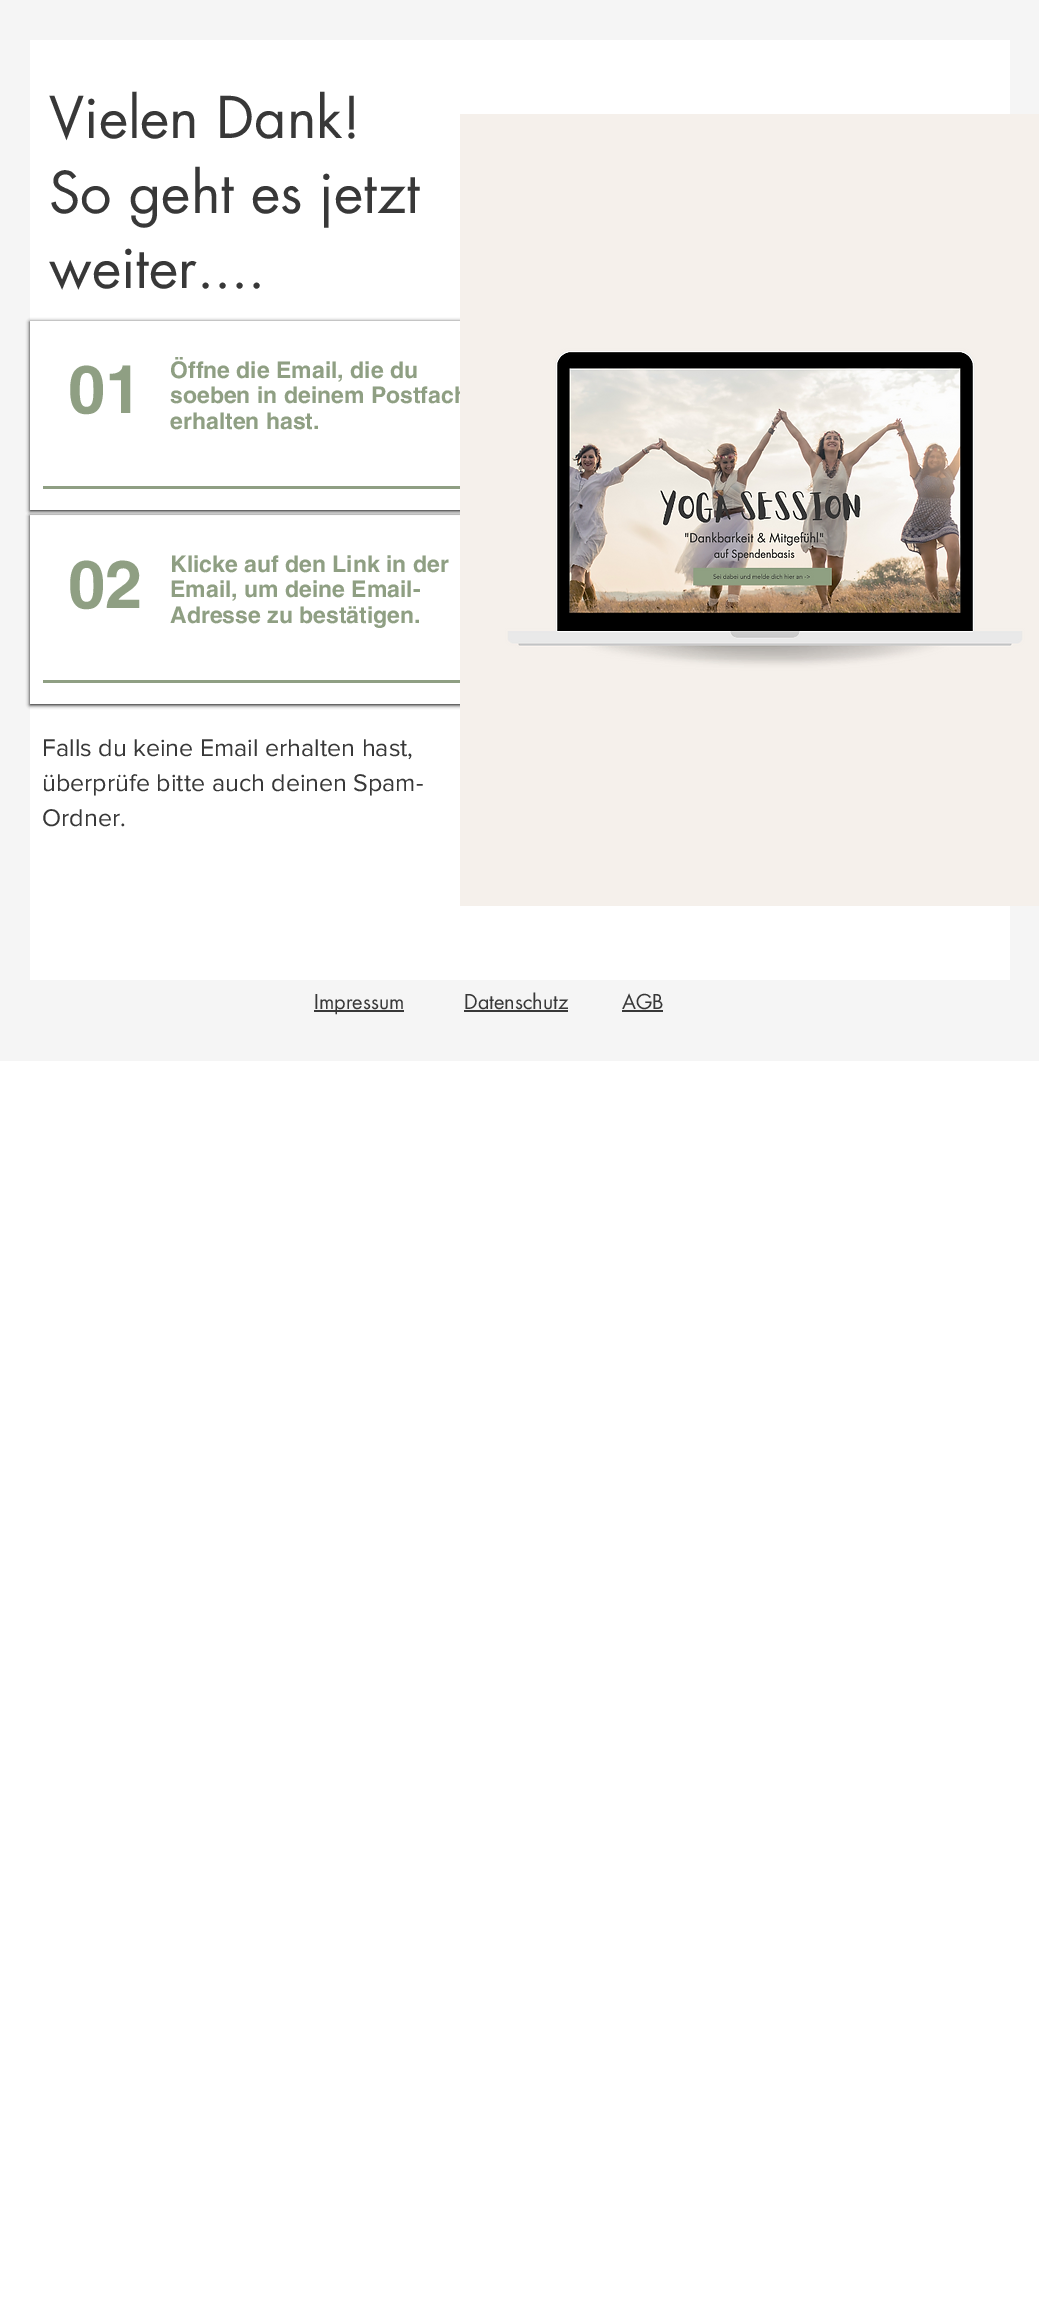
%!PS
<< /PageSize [1039 2316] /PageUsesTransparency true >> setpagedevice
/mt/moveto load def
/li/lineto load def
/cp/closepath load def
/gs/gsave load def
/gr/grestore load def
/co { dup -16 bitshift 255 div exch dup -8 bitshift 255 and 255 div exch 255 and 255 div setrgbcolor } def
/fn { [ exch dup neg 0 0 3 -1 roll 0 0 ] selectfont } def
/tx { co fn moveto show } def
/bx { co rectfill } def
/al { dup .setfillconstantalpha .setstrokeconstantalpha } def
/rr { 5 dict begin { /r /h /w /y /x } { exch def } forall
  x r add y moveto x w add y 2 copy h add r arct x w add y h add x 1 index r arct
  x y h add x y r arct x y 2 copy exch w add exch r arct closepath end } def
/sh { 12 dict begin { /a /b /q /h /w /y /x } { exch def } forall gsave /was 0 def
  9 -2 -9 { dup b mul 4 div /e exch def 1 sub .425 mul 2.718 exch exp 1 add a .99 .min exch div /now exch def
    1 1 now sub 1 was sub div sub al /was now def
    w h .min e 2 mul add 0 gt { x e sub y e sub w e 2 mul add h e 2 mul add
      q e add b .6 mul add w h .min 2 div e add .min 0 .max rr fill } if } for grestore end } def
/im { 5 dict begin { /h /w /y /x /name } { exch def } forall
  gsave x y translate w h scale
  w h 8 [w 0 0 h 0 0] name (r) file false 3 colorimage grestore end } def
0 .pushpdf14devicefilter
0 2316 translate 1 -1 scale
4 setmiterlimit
0 0 1039 2316 16#FFFFFF bx
0 0 1039 1061 16#F5F5F5 bx
30 40 980 940 16#FFFFFF bx
gs
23 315 mt 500 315 li 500 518 li 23 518 li cp 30 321 mt 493 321 li 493 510 li 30 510 li cp eoclip newpath
16#000000 co
30 322 463 189 0 2 1 sh
gr
43 486 417 3 16#8F9F83 bx
gs
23 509 mt 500 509 li 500 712 li 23 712 li cp 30 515 mt 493 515 li 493 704 li 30 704 li cp eoclip newpath
16#000000 co
30 516 463 189 0 2 1 sh
gr
43 680 417 3 16#8F9F83 bx
314 1010 90 2 16#383838 bx
464 1010 104 2 16#383838 bx
622 1010 41 2 16#383838 bx
(Vielen Dank!) 49 138 /futura-Regular 56 16#383838 tx
(So geht es jetzt) 49 213 /futura-Regular 56 16#383838 tx
(weiter....) 49 288 /futura-Regular 56 16#383838 tx
(01) 68 413 /helvetica-Bold 67 16#8F9F83 tx
(Öffne die Email, die du) 170 378 /helvetica-Bold 23 16#8F9F83 tx
(soeben in deinem Postfach) 170 403 /helvetica-Bold 23 16#8F9F83 tx
(erhalten hast.) 170 429 /helvetica-Bold 23 16#8F9F83 tx
(02) 68 608 /helvetica-Bold 67 16#8F9F83 tx
(Klicke auf den Link in der) 170 572 /helvetica-Bold 23 16#8F9F83 tx
(Email, um deine Email-) 170 597 /helvetica-Bold 23 16#8F9F83 tx
(Adresse zu bestätigen.) 170 623 /helvetica-Bold 23 16#8F9F83 tx
(Falls du keine Email erhalten hast,) 42 756 /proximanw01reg-Regular 25 16#383838 tx
(überprüfe bitte auch deinen Spam-) 42 791 /proximanw01reg-Regular 25 16#383838 tx
(Ordner.) 42 826 /proximanw01reg-Regular 25 16#383838 tx
(media/1.raw) 460 114 579 792 im
(Impressum) 314 1009 /futura-Regular 20 16#383838 tx
(Datenschutz) 464 1009 /futura-Regular 20 16#383838 tx
(AGB) 622 1009 /futura-Regular 20 16#383838 tx
.poppdf14devicefilter showpage
